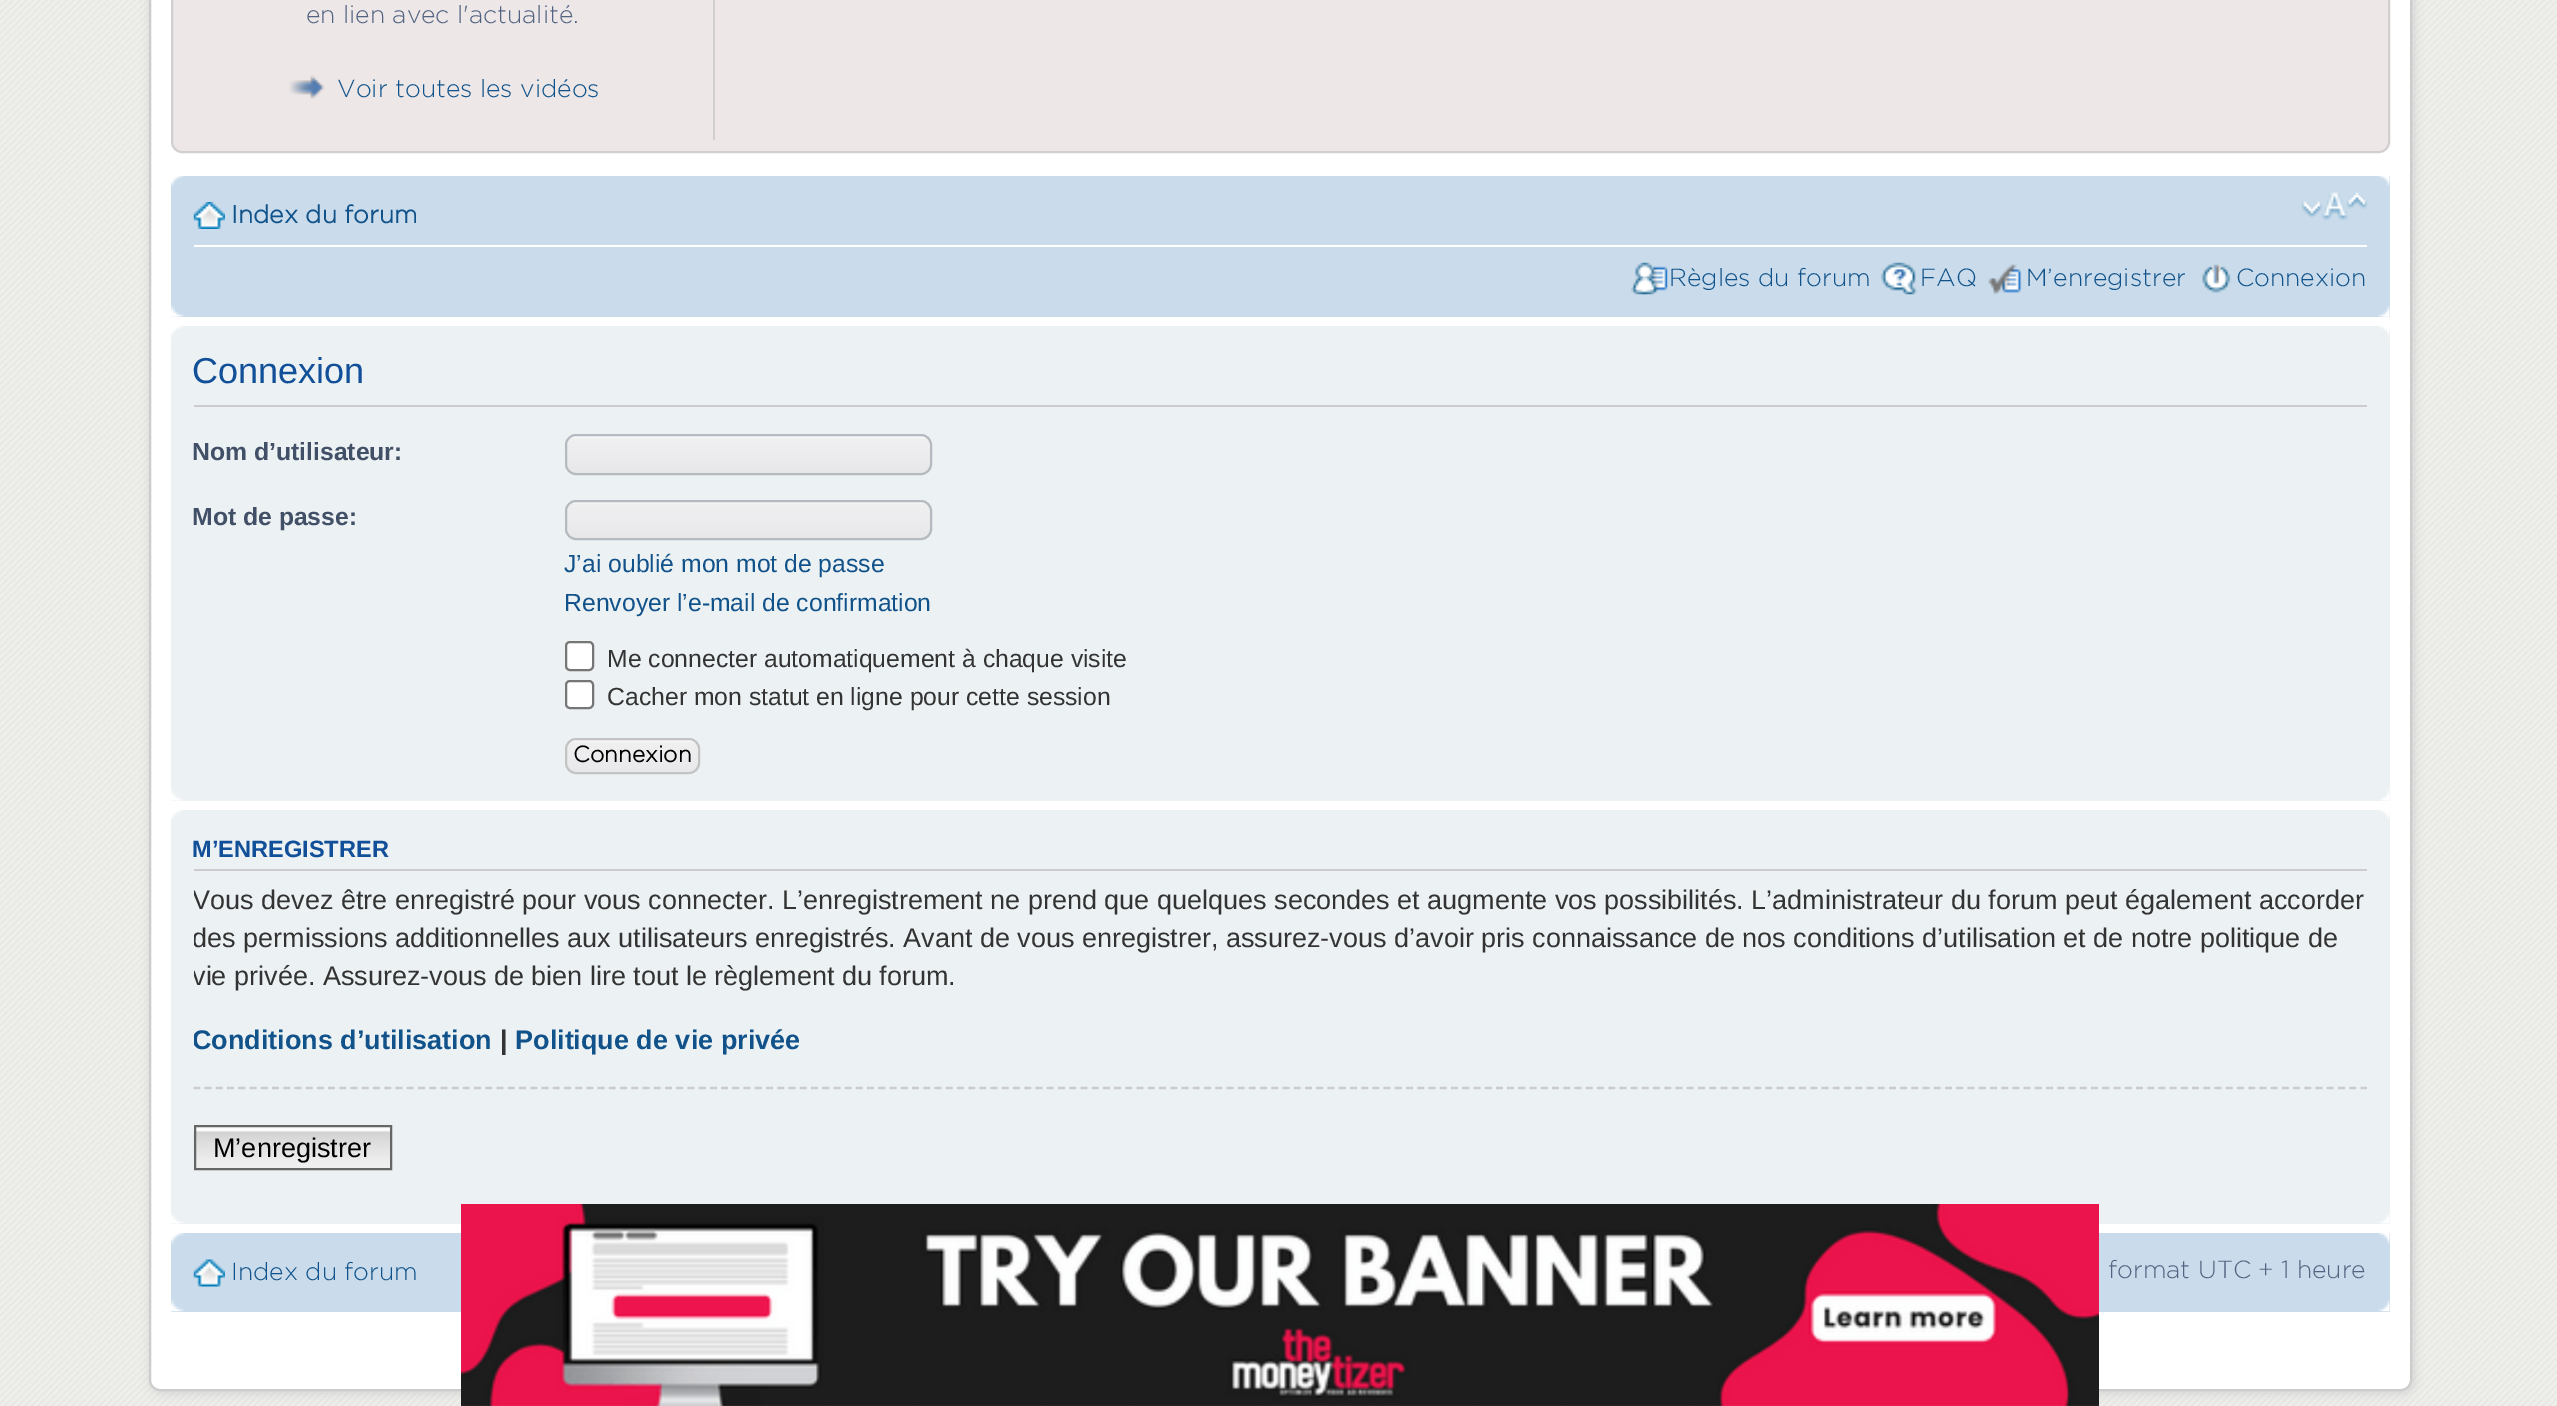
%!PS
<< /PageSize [2557 1406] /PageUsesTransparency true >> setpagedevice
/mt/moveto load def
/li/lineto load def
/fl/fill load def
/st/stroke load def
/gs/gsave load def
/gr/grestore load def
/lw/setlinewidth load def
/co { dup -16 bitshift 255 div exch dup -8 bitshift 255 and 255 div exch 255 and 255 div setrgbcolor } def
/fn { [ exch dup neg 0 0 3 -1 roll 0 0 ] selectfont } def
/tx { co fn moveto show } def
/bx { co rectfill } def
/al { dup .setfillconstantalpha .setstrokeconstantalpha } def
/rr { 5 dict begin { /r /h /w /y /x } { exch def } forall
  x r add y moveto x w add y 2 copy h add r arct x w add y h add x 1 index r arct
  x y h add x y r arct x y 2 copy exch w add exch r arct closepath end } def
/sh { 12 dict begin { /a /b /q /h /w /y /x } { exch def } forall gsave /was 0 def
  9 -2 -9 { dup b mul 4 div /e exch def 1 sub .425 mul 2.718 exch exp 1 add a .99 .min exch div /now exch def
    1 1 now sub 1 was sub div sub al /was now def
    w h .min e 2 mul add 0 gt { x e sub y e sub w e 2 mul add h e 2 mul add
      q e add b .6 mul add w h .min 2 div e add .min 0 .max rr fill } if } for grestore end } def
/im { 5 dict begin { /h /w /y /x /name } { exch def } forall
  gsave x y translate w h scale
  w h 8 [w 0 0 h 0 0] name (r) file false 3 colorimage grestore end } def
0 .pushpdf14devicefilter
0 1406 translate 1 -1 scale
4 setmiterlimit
0 0 2557 1406 16#FFFFFF bx
(media/1.raw) 0 0 2557 1406 im
16#D0D0D0 co
151 -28 2263 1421 11 5.5 1 sh
16#FFFFFF co
150 -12 2261 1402 10 rr gs fl gr
16#CCCCCC co
2 lw
st
16#EDE7E7 co
172 -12 2217 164 10 rr gs fl gr
16#D1CFCF co
st
713 0 2 140 16#D1CFCF bx
(media/2.raw) 289 75 36 24 im
171 176 2219 141 16#CADCEB bx
(media/3.raw) 171 176 14 10 im
(media/4.raw) 2378 176 12 10 im
194 245 2173 2 16#FFFFFF bx
(media/5.raw) 193 202 32 27 im
(media/6.raw) 2301 192 66 29 im
(media/7.raw) 1631 262 37 33 im
(media/8.raw) 1881 262 36 33 im
(media/9.raw) 1988 264 34 31 im
(media/10.raw) 2202 264 29 29 im
(media/11.raw) 171 305 14 12 im
(media/12.raw) 2378 305 12 12 im
171 326 2219 475 16#ECF1F3 bx
(media/13.raw) 171 326 12 11 im
(media/14.raw) 2379 326 11 11 im
194 405 2173 2 16#CCCCCC bx
(media/15.raw) 565 436 366 38 im
16#B4BAC0 co
566 435 365 39 10 rr st
(media/16.raw) 565 501 366 38 im
566 501 365 38 10 rr st
16#FFFFFF co
566 642 27 28 4 rr gs fl gr
16#767676 co
st
16#FFFFFF co
566 681 27 27 4 rr gs fl gr
16#767676 co
st
(media/17.raw) 565 739 135 34 im
16#C3C3C3 co
566 739 133 34 10 rr st
(media/18.raw) 171 790 12 11 im
(media/19.raw) 2379 790 11 11 im
171 810 2219 414 16#ECF1F3 bx
(media/20.raw) 171 810 12 10 im
(media/21.raw) 2379 810 11 10 im
194 869 2173 2 16#CCCCCC bx
2.2 lw
[6.75 4.48] 0 setdash
193.5 1088 mt 2367 1088 li st
(media/22.raw) 193 1129 197 41 im
196 1127 194 2 16#FAFAFA bx
16#666666 co
2 lw
[] 0 setdash
195 1126 196 43 rectstroke
(media/23.raw) 171 1212 14 12 im
(media/19.raw) 2379 1213 11 11 im
171 1233 2219 79 16#CADCEB bx
(media/24.raw) 171 1232 15 12 im
(media/25.raw) 2378 1233 12 11 im
(media/26.raw) 193 1259 32 28 im
(media/27.raw) 171 1300 14 12 im
(media/28.raw) 2378 1300 12 12 im
(media/29.raw) 461 1204 1638 202 im
(en lien avec l'actualité.) 306 23 /Gotham-Light 24.75 16#536482 tx
(Voir toutes les vidéos) 337 97 /Gotham-Light 24.75 16#105289 tx
(Index du forum) 231 223 /Gotham-Bold 24.75 16#105289 tx
(Règles du forum) 1669 286 /Gotham-Light 24.75 16#105289 tx
(FAQ) 1920 286 /Gotham-Light 24.75 16#105289 tx
(M’enregistrer) 2026 286 /Gotham-Light 24.75 16#105289 tx
(Connexion) 2236 286 /Gotham-Light 24.75 16#105289 tx
(Connexion) 192 383 /LiberationSans-Regular 36 16#115098 tx
(Nom d’utilisateur:) 192 460 /LiberationSans-Bold 24.75 16#425067 tx
(Mot de passe:) 192 525 /LiberationSans-Bold 24.75 16#425067 tx
(J’ai oublié mon mot de passe) 564 572 /LiberationSans-Regular 24.75 16#105289 tx
(Renvoyer l’e-mail de confirmation) 564 611 /LiberationSans-Regular 24.75 16#105289 tx
(Me connecter automatiquement à chaque visite) 607 667 /LiberationSans-Regular 24.75 16#333333 tx
(Cacher mon statut en ligne pour cette session) 607 705 /LiberationSans-Regular 24.75 16#333333 tx
(Connexion) 573 762 /Gotham-Bold 22.5 16#000000 tx
(M’ENREGISTRER) 192 857 /LiberationSans-Bold 23.6 16#115098 tx
gs
194 821 2173 392 rectclip
(Vous devez être enregistré pour vous connecter. L’enregistrement ne prend que quelques secondes et augmente vos possibilités. L’administrateur du forum peut également accorder) 192 909 /LiberationSans-Regular 27 16#333333 tx
(des permissions additionnelles aux utilisateurs enregistrés. Avant de vous enregistrer, assurez-vous d’avoir pris connaissance de nos conditions d’utilisation et de notre politique de) 192 947 /LiberationSans-Regular 27 16#333333 tx
(vie privée. Assurez-vous de bien lire tout le règlement du forum.) 192 985 /LiberationSans-Regular 27 16#333333 tx
(Conditions d’utilisation) 192 1049 /LiberationSans-Bold 27 16#105289 tx
gr
(|) 500 1049 /LiberationSans-Bold 27 16#333333 tx
(Politique de vie privée) 515 1049 /LiberationSans-Bold 27 16#105289 tx
(M’enregistrer) 213 1157 /LiberationSans-Regular 27 16#000000 tx
(Index du forum) 231 1280 /Gotham-Light 24.75 16#105289 tx
(format UTC + 1 heure) 2108 1278 /Gotham-Light 24.75 16#536482 tx
.poppdf14devicefilter showpage
